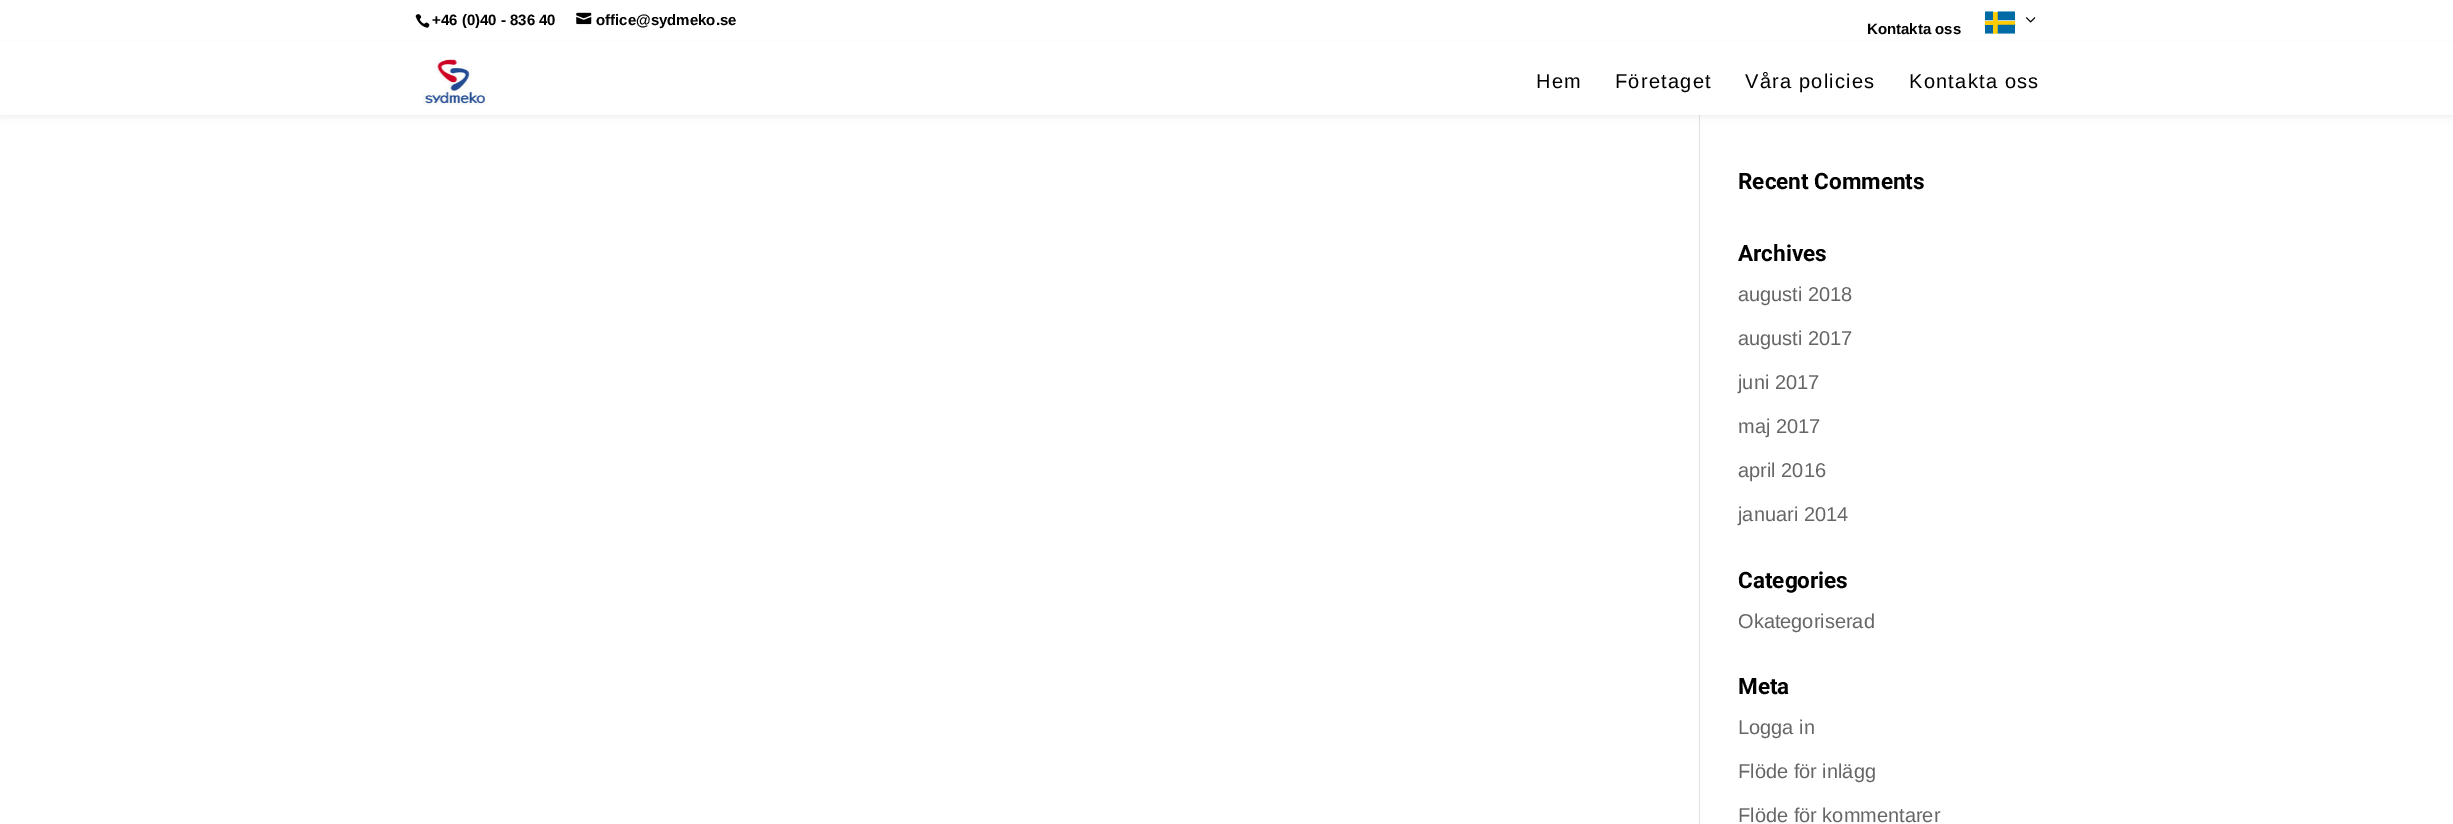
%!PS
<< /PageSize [2453 824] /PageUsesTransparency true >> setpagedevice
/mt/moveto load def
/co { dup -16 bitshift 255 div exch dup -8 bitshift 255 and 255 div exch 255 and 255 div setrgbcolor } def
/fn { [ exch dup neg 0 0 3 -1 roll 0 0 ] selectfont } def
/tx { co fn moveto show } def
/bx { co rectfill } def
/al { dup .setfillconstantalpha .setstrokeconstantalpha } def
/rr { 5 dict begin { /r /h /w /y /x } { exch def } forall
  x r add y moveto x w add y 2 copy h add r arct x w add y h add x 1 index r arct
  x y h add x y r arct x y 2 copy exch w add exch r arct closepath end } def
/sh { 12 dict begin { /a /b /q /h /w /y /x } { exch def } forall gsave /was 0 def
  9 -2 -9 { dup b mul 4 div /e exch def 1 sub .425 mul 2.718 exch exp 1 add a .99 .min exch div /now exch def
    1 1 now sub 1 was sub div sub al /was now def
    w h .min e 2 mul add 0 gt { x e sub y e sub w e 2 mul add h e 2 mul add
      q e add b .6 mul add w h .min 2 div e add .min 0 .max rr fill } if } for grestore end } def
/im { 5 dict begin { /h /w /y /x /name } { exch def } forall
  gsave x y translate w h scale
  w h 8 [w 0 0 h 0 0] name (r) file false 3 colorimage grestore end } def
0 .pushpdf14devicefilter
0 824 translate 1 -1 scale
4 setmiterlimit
0 0 2453 824 16#FFFFFF bx
(media/1.raw) 415 14 15 14 im
(media/2.raw) 576 12 16 13 im
1699 115 1 709 16#E2E2E2 bx
16#000000 co
0 48 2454 67 0 4.5 .1 sh
(media/3.raw) 1985 11 30 23 im
(media/4.raw) 2026 17 10 6 im
0 42 2453 73 16#FFFFFF bx
(media/5.raw) 422 59 64 46 im
(+46 \(0\)40 - 836 40) 432 25 /LiberationSans-Bold 15 16#000000 tx
(office@sydmeko.se) 596 25 /LiberationSans-Bold 15 16#000000 tx
(Kontakta oss) 1867 34 /LiberationSans-Bold 15 16#000000 tx
/LiberationSans-Regular 20 fn
1536 88 mt 1.25 0 (Hem) ashow
1615 88 mt 1.25 0 (Företaget) ashow
1745 88 mt 1.25 0 (Våra policies) ashow
1909 88 mt 1.25 0 (Kontakta oss) ashow
(Recent Comments) 1738 189 /Roboto-Bold 22.5 16#000000 tx
(Archives) 1738 261 /Roboto-Bold 22.5 16#000000 tx
(augusti 2018) 1738 301 /LiberationSans-Regular 20 16#666666 tx
(augusti 2017) 1738 345 /LiberationSans-Regular 20 16#666666 tx
(juni 2017) 1738 389 /LiberationSans-Regular 20 16#666666 tx
(maj 2017) 1738 433 /LiberationSans-Regular 20 16#666666 tx
(april 2016) 1738 477 /LiberationSans-Regular 20 16#666666 tx
(januari 2014) 1738 521 /LiberationSans-Regular 20 16#666666 tx
(Categories) 1738 588 /Roboto-Bold 22.5 16#000000 tx
(Okategoriserad) 1738 628 /LiberationSans-Regular 20 16#666666 tx
(Meta) 1738 694 /Roboto-Bold 22.5 16#000000 tx
(Logga in) 1738 734 /LiberationSans-Regular 20 16#666666 tx
(Flöde för inlägg) 1738 778 /LiberationSans-Regular 20 16#666666 tx
(Flöde för kommentarer) 1738 822 /LiberationSans-Regular 20 16#666666 tx
.poppdf14devicefilter showpage
